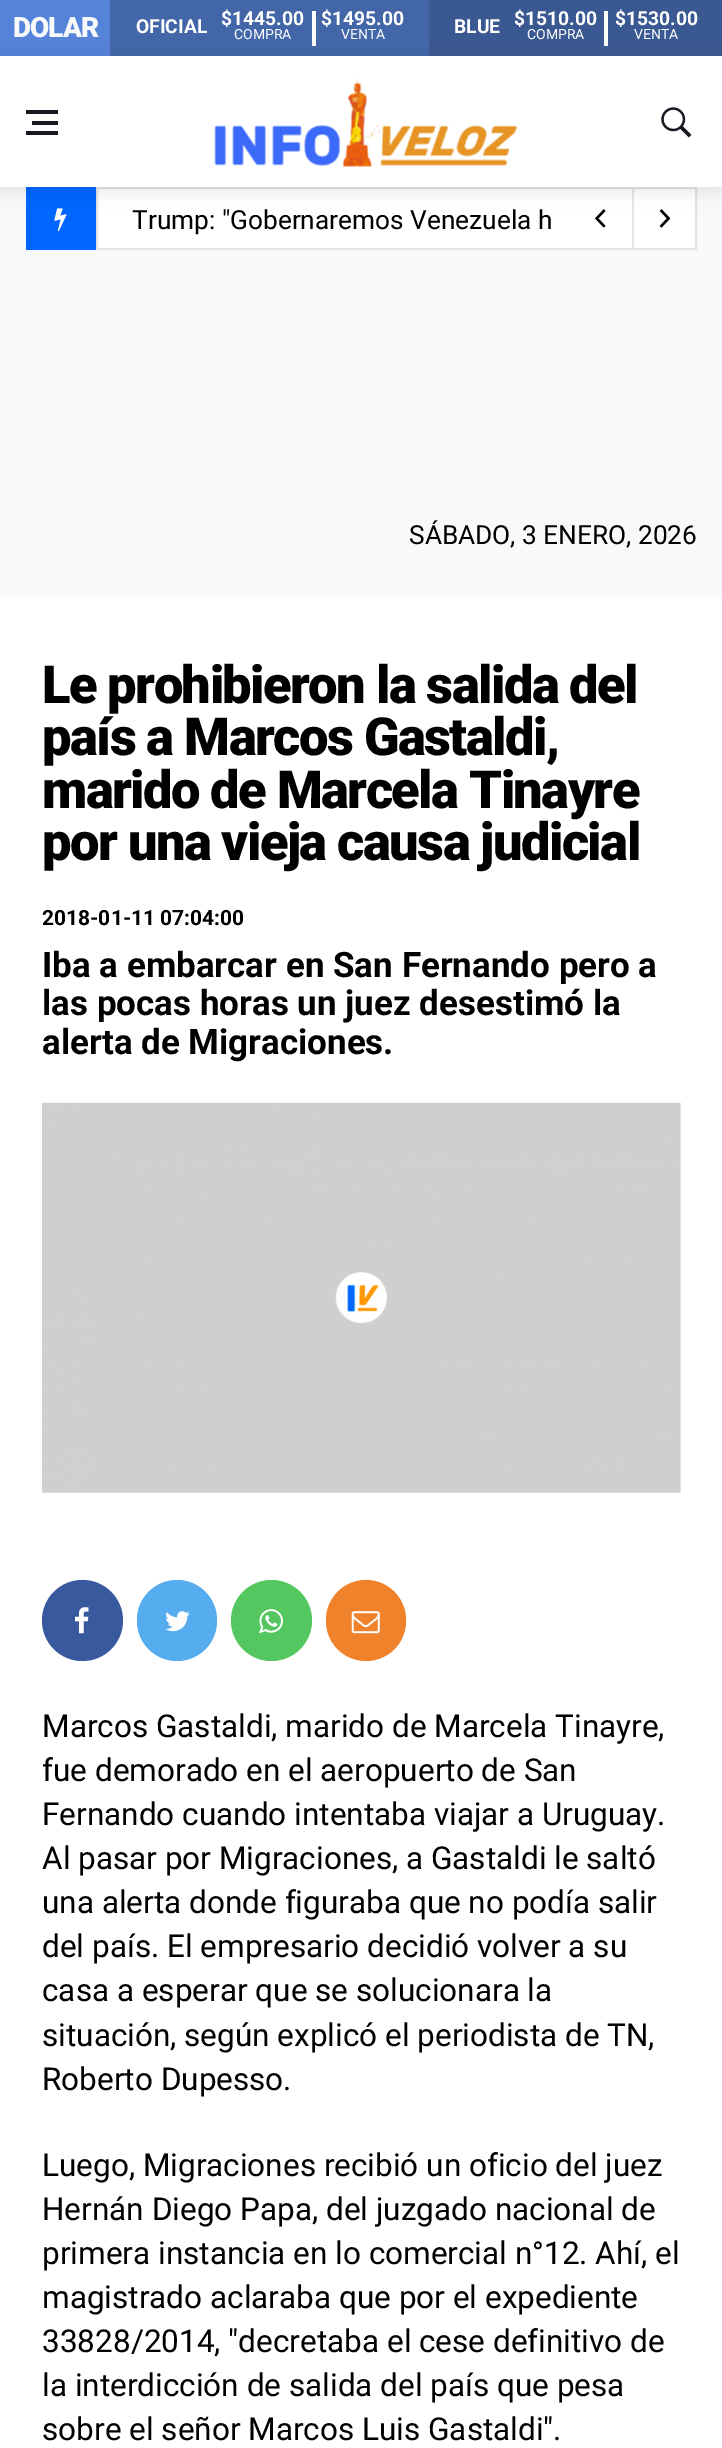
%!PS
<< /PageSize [722 2448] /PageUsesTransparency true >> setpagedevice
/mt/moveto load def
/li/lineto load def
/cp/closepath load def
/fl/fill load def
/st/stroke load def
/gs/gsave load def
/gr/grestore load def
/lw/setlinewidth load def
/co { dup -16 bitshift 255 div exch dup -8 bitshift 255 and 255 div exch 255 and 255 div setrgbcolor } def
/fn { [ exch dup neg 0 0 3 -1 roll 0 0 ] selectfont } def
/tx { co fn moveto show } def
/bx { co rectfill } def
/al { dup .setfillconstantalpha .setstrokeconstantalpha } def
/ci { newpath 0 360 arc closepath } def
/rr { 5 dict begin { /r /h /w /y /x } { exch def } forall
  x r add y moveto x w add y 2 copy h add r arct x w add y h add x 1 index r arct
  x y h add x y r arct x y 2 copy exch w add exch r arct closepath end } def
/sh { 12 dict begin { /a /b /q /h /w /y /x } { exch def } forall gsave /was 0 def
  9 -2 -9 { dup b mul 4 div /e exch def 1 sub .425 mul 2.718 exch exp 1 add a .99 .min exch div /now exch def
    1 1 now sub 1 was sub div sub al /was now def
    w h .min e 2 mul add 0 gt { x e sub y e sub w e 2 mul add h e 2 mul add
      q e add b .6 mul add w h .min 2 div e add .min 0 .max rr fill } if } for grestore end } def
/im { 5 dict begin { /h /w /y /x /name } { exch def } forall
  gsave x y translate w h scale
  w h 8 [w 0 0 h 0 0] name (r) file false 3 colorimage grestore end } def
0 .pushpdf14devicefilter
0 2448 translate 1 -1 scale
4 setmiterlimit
0 0 722 2448 16#F8F9FA bx
0 0 110 56 16#5683DA bx
110 0 319 56 16#4366A9 bx
312 11 4 35 16#FFFFFF bx
429 0 293 56 16#3A5891 bx
604 11 4 35 16#FFFFFF bx
26 187 70 63 16#0066FF bx
(media/3.raw) 54 208 13 24 im
16#FFFFFF co
97 188 mt 696 188 li 696 249 li 97 249 li cp gs fl gr
16#E3E4E8 co
2 lw
st
632 187 2 63 16#E3E4E8 bx
(media/4.raw) 595 209 11 19 im
(media/5.raw) 659 209 12 19 im
16#000000 co
0 60 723 131 0 9 .1 sh
0 56 722 131 16#FFFFFF bx
32 121 26 4 16#171821 bx
26 110 32 4 16#171821 bx
26 131 32 4 16#171821 bx
(media/1.raw) 214 78 304 89 im
(media/2.raw) 661 107 31 31 im
0 597 722 1851 16#FFFFFF bx
(media/6.raw) 42 1102 639 391 im
16#39599F co
82.5 1620.5 40.5 ci fl
(media/7.raw) 75 1607 14 27 im
16#55ACEE co
137 1580 80 81 40 rr fl
(media/8.raw) 165 1611 25 21 im
16#54C760 co
271.5 1620.5 40.5 ci fl
(media/9.raw) 259 1609 24 25 im
16#EF822A co
326 1580 80 81 40 rr fl
(media/10.raw) 351 1611 29 23 im
/Roboto-Black 28 fn
16#F8F9FA co
13 37 mt -1 0 (DOLAR) ashow
(OFICIAL) 136 33 /Roboto-Bold 19.25 16#FFFFFF tx
($1445.00) 221 25 /Roboto-Bold 19.25 16#FFFFFF tx
(COMPRA) 234 39 /Roboto-Regular 14 16#FFFFFF tx
($1495.00) 321 25 /Roboto-Bold 19.25 16#FFFFFF tx
(VENTA) 341 39 /Roboto-Regular 14 16#FFFFFF tx
(BLUE) 454 33 /Roboto-Bold 19.25 16#FFFFFF tx
($1510.00) 514 25 /Roboto-Bold 19.25 16#FFFFFF tx
(COMPRA) 527 39 /Roboto-Regular 14 16#FFFFFF tx
($1530.00) 615 25 /Roboto-Bold 19.25 16#FFFFFF tx
(VENTA) 634 39 /Roboto-Regular 14 16#FFFFFF tx
(Trump: "Gobernaremos Venezuela h) 132 229 /Roboto-Regular 26.25 16#000000 tx
(SÁBADO, 3 ENERO, 2026) 409 544 /Roboto-Regular 26.25 16#000000 tx
/Roboto-Black 52.5 fn
42 703 mt -1.6 0 (Le prohibieron la salida del) ashow
42 755 mt -1.6 0 (país a Marcos Gastaldi,) ashow
42 808 mt -1.6 0 (marido de Marcela Tinayre) ashow
42 860 mt -1.6 0 (por una vieja causa judicial) ashow
(2018-01-11 07:04:00) 42 925 /Roboto-Bold 21 16#000000 tx
(Iba a embarcar en San Fernando pero a) 42 977 /Roboto-Bold 35 16#000000 tx
(las pocas horas un juez desestimó la) 42 1015 /Roboto-Bold 35 16#000000 tx
(alerta de Migraciones.) 42 1054 /Roboto-Bold 35 16#000000 tx
(Marcos Gastaldi, marido de Marcela Tinayre,) 42 1737 /Roboto-Regular 31.5 16#000000 tx
(fue demorado en el aeropuerto de San) 42 1781 /Roboto-Regular 31.5 16#000000 tx
(Fernando cuando intentaba viajar a Uruguay.) 42 1825 /Roboto-Regular 31.5 16#000000 tx
(Al pasar por Migraciones, a Gastaldi le saltó) 42 1869 /Roboto-Regular 31.5 16#000000 tx
(una alerta donde figuraba que no podía salir) 42 1913 /Roboto-Regular 31.5 16#000000 tx
(del país. El empresario decidió volver a su) 42 1957 /Roboto-Regular 31.5 16#000000 tx
(casa a esperar que se solucionara la) 42 2001 /Roboto-Regular 31.5 16#000000 tx
(situación, según explicó el periodista de TN,) 42 2046 /Roboto-Regular 31.5 16#000000 tx
(Roberto Dupesso.) 42 2090 /Roboto-Regular 31.5 16#000000 tx
(Luego, Migraciones recibió un oficio del juez) 42 2176 /Roboto-Regular 31.5 16#000000 tx
(Hernán Diego Papa, del juzgado nacional de) 42 2220 /Roboto-Regular 31.5 16#000000 tx
(primera instancia en lo comercial n°12. Ahí, el) 42 2264 /Roboto-Regular 31.5 16#000000 tx
(magistrado aclaraba que por el expediente) 42 2308 /Roboto-Regular 31.5 16#000000 tx
(33828/2014, "decretaba el cese definitivo de) 42 2352 /Roboto-Regular 31.5 16#000000 tx
(la interdicción de salida del país que pesa) 42 2396 /Roboto-Regular 31.5 16#000000 tx
(sobre el señor Marcos Luis Gastaldi".) 42 2440 /Roboto-Regular 31.5 16#000000 tx
.poppdf14devicefilter showpage
